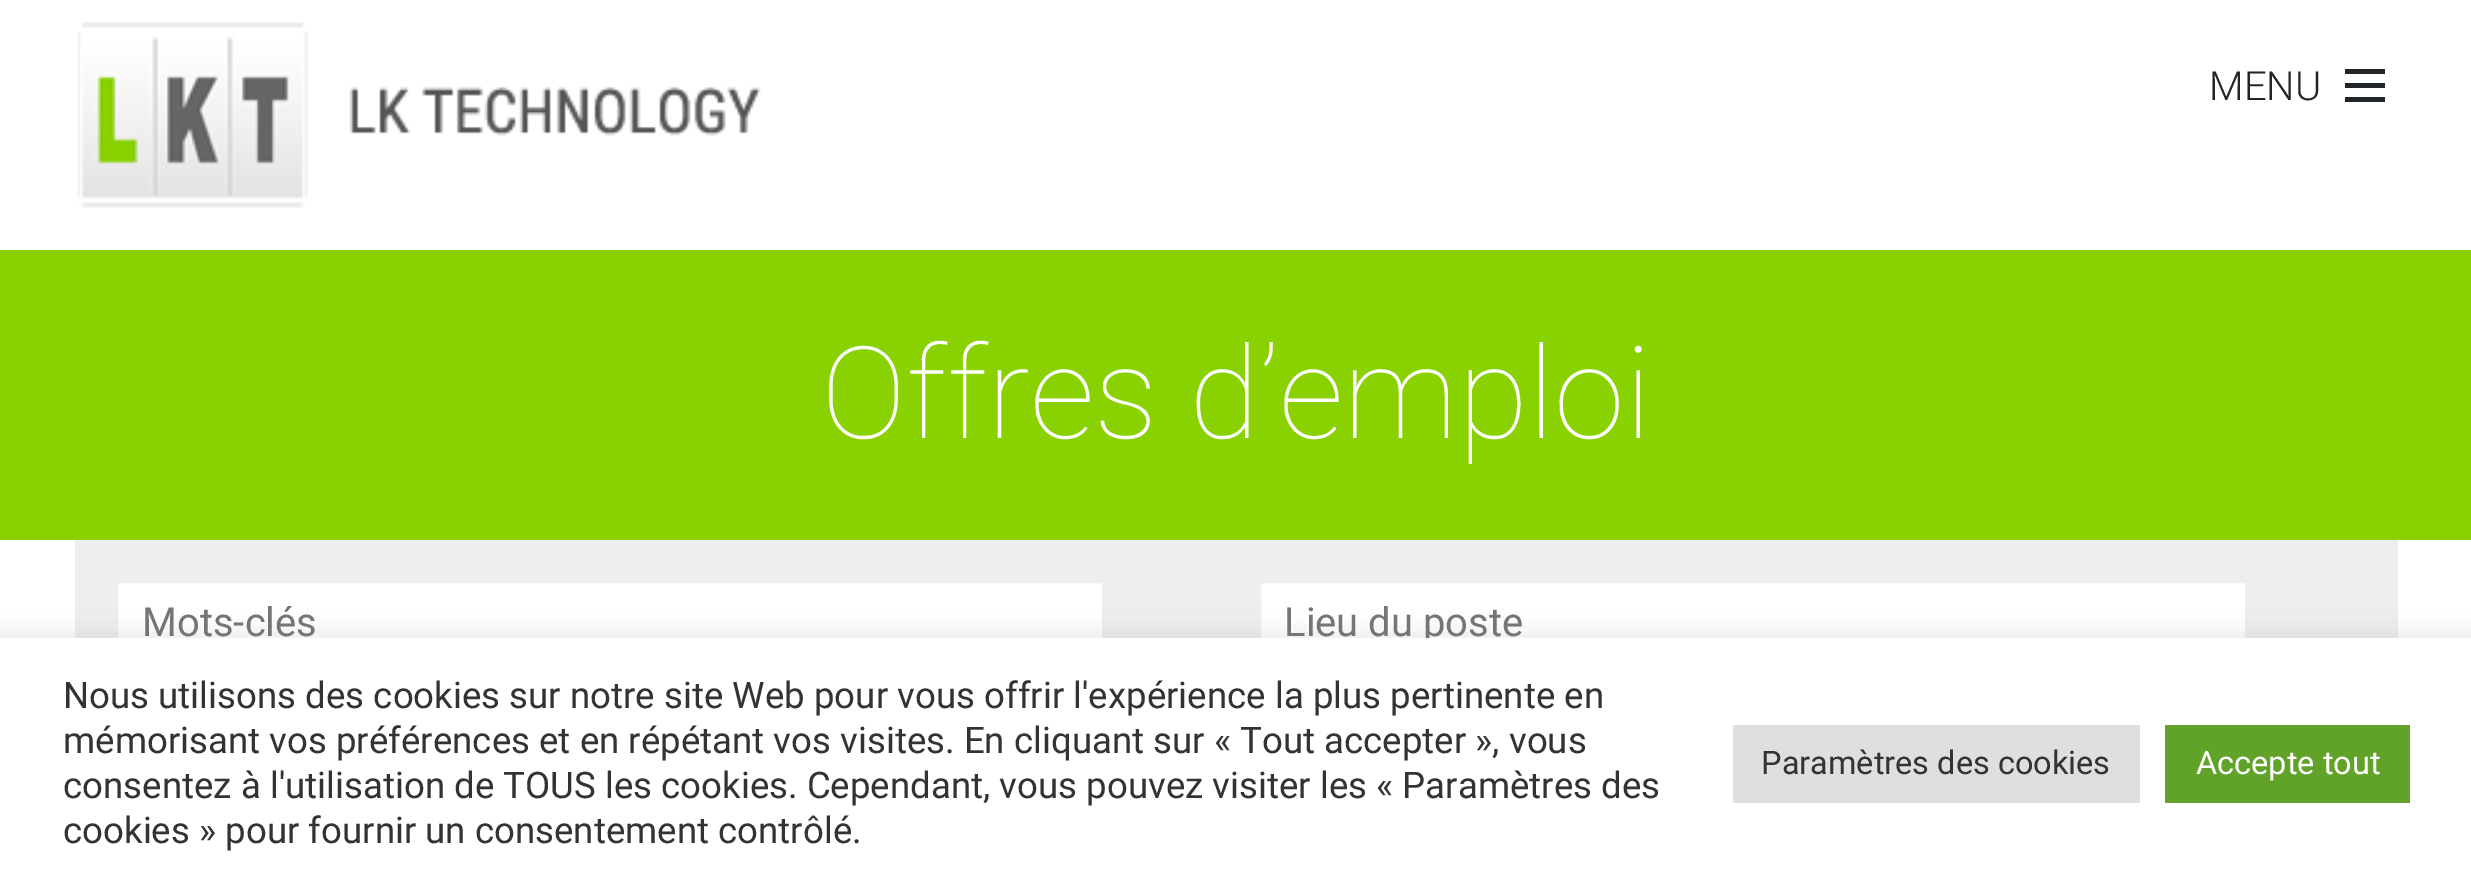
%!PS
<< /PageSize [2471 887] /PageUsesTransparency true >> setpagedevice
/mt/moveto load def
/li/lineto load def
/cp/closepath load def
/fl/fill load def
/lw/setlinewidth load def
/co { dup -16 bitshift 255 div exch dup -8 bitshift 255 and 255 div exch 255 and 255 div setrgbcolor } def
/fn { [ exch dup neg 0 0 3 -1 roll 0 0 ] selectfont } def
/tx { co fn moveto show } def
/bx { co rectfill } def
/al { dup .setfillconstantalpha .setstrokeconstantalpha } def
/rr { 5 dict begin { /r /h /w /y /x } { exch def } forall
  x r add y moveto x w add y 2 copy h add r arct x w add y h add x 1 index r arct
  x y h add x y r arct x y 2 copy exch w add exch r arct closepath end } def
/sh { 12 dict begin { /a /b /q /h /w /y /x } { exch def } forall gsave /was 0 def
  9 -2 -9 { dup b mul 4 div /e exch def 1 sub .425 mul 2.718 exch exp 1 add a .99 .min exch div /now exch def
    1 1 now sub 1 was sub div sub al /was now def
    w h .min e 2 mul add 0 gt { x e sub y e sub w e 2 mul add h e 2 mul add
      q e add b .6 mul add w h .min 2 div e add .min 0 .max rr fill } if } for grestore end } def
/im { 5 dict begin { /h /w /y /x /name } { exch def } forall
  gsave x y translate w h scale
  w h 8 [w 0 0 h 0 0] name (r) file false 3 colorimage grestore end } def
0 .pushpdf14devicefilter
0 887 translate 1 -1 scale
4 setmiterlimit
0 0 2471 887 16#FFFFFF bx
(media/1.raw) 77 22 684 186 im
16#222527 co
2345 69 mt 2385 69 li 2385 74 li 2345 74 li cp 2345 83 mt 2385 83 li 2385 88 li 2345 88 li cp 2345 97 mt 2385 97 li 2385 102 li 2345 102 li cp fl
0 250 2471 290 16#89D101 bx
75 540 2323 98 16#EEEEEE bx
118 583 984 55 16#FFFFFF bx
16#EEEEEE co
3 lw
116.5 581.5 987 80 rectstroke
1261 583 984 55 16#FFFFFF bx
16#EEEEEE co
1259.5 581.5 987 80 rectstroke
16#ACABAB co
0 635 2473 250 0 12.5 .3 sh
(MENU) 2209 100 /Roboto-Light 40 16#222527 tx
(Offres d’emploi) 821 438 /Roboto-Thin 128 16#FFFFFF tx
(Mots-clés) 142 636 /Roboto-Regular 40 16#757575 tx
(Lieu du poste) 1284 636 /Roboto-Regular 40 16#757575 tx
0 638 2471 249 16#FFFFFF bx
(Nous utilisons des cookies sur notre site Web pour vous offrir l'expérience la plus pertinente en) 63 708 /Roboto-Regular 36.65 16#333333 tx
(mémorisant vos préférences et en répétant vos visites. En cliquant sur « Tout accepter », vous) 63 753 /Roboto-Regular 36.65 16#333333 tx
(consentez à l'utilisation de TOUS les cookies. Cependant, vous pouvez visiter les « Paramètres des) 63 798 /Roboto-Regular 36.65 16#333333 tx
(cookies » pour fournir un consentement contrôlé.) 63 843 /Roboto-Regular 36.65 16#333333 tx
1733 725 407 78 16#DEDFE0 bx
(Paramètres des cookies) 1761 774 /Roboto-Regular 32.5 16#333333 tx
2165 725 245 78 16#61A229 bx
(Accepte tout) 2196 774 /Roboto-Regular 32.5 16#FFFFFF tx
.poppdf14devicefilter showpage
